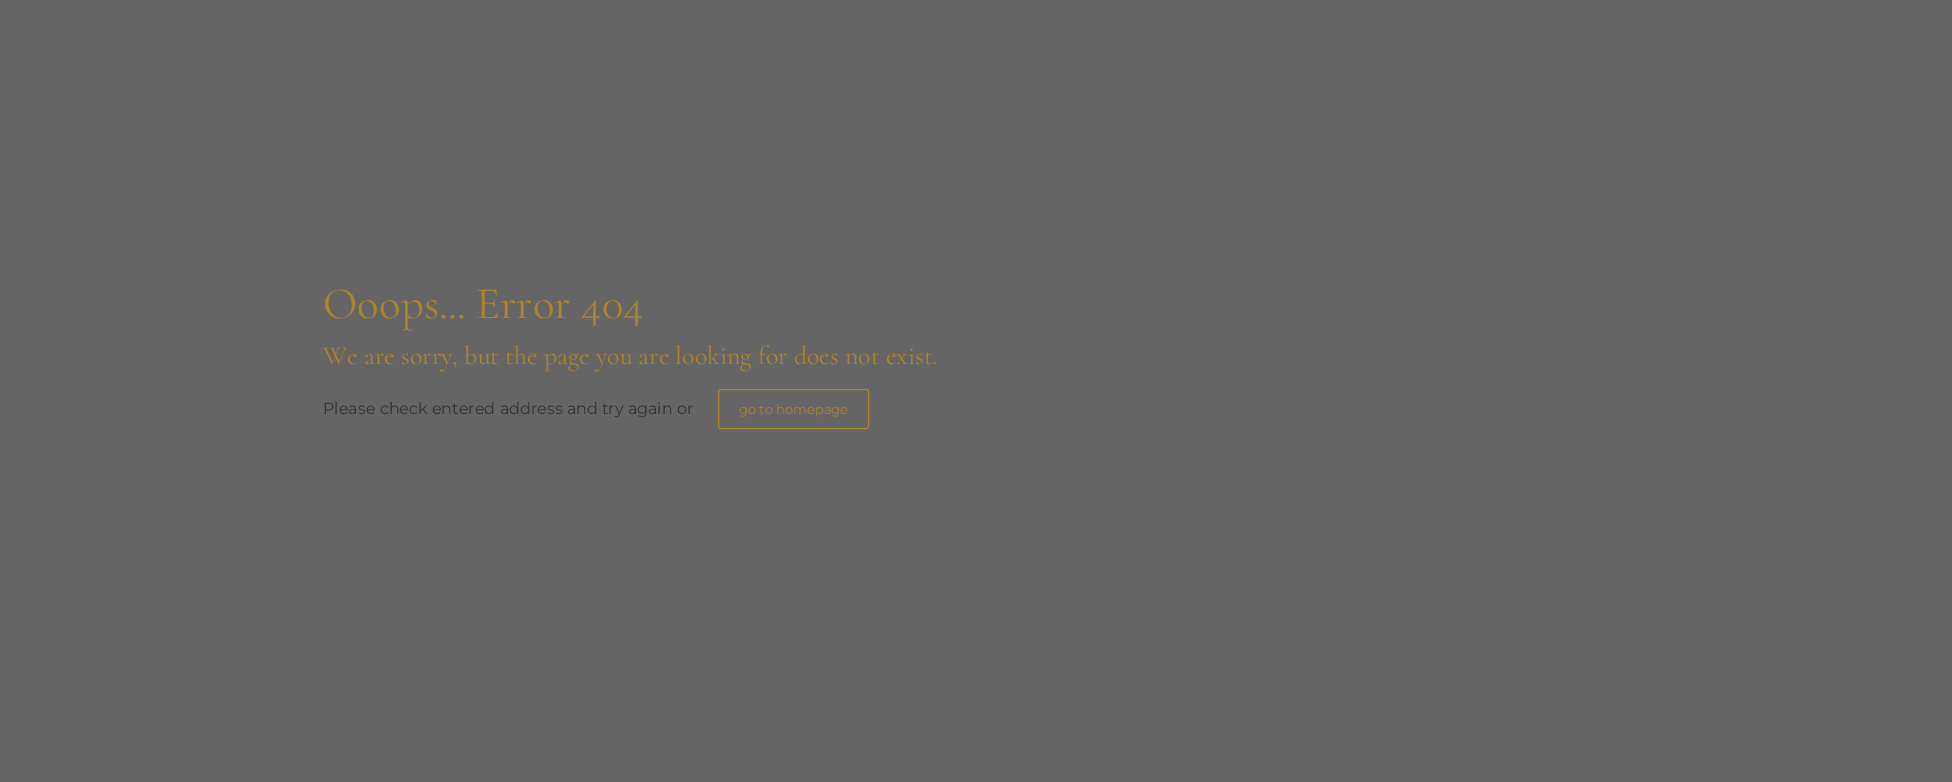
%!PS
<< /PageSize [1952 782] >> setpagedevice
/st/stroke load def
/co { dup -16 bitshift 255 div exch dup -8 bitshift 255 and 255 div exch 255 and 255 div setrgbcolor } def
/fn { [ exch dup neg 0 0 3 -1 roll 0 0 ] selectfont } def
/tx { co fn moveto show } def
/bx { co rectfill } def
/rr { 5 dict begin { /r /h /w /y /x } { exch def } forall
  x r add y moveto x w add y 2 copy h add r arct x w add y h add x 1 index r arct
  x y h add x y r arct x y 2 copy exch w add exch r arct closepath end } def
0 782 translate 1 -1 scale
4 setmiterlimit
0 0 1952 782 16#656565 bx
16#AE852D co
718.5 389.5 150 39 2.5 rr st
(Ooops... Error 404) 323 318 /Cormorant-Regular 45 16#AE852D tx
(We are sorry, but the page you are looking for does not exist.) 323 364 /Cormorant-Regular 26 16#AE852D tx
(Please check entered address and try again or) 323 414 /Montserrat-Regular 16 16#333333 tx
(go to homepage) 739 414 /Montserrat-Regular 13 16#AE852D tx
showpage
